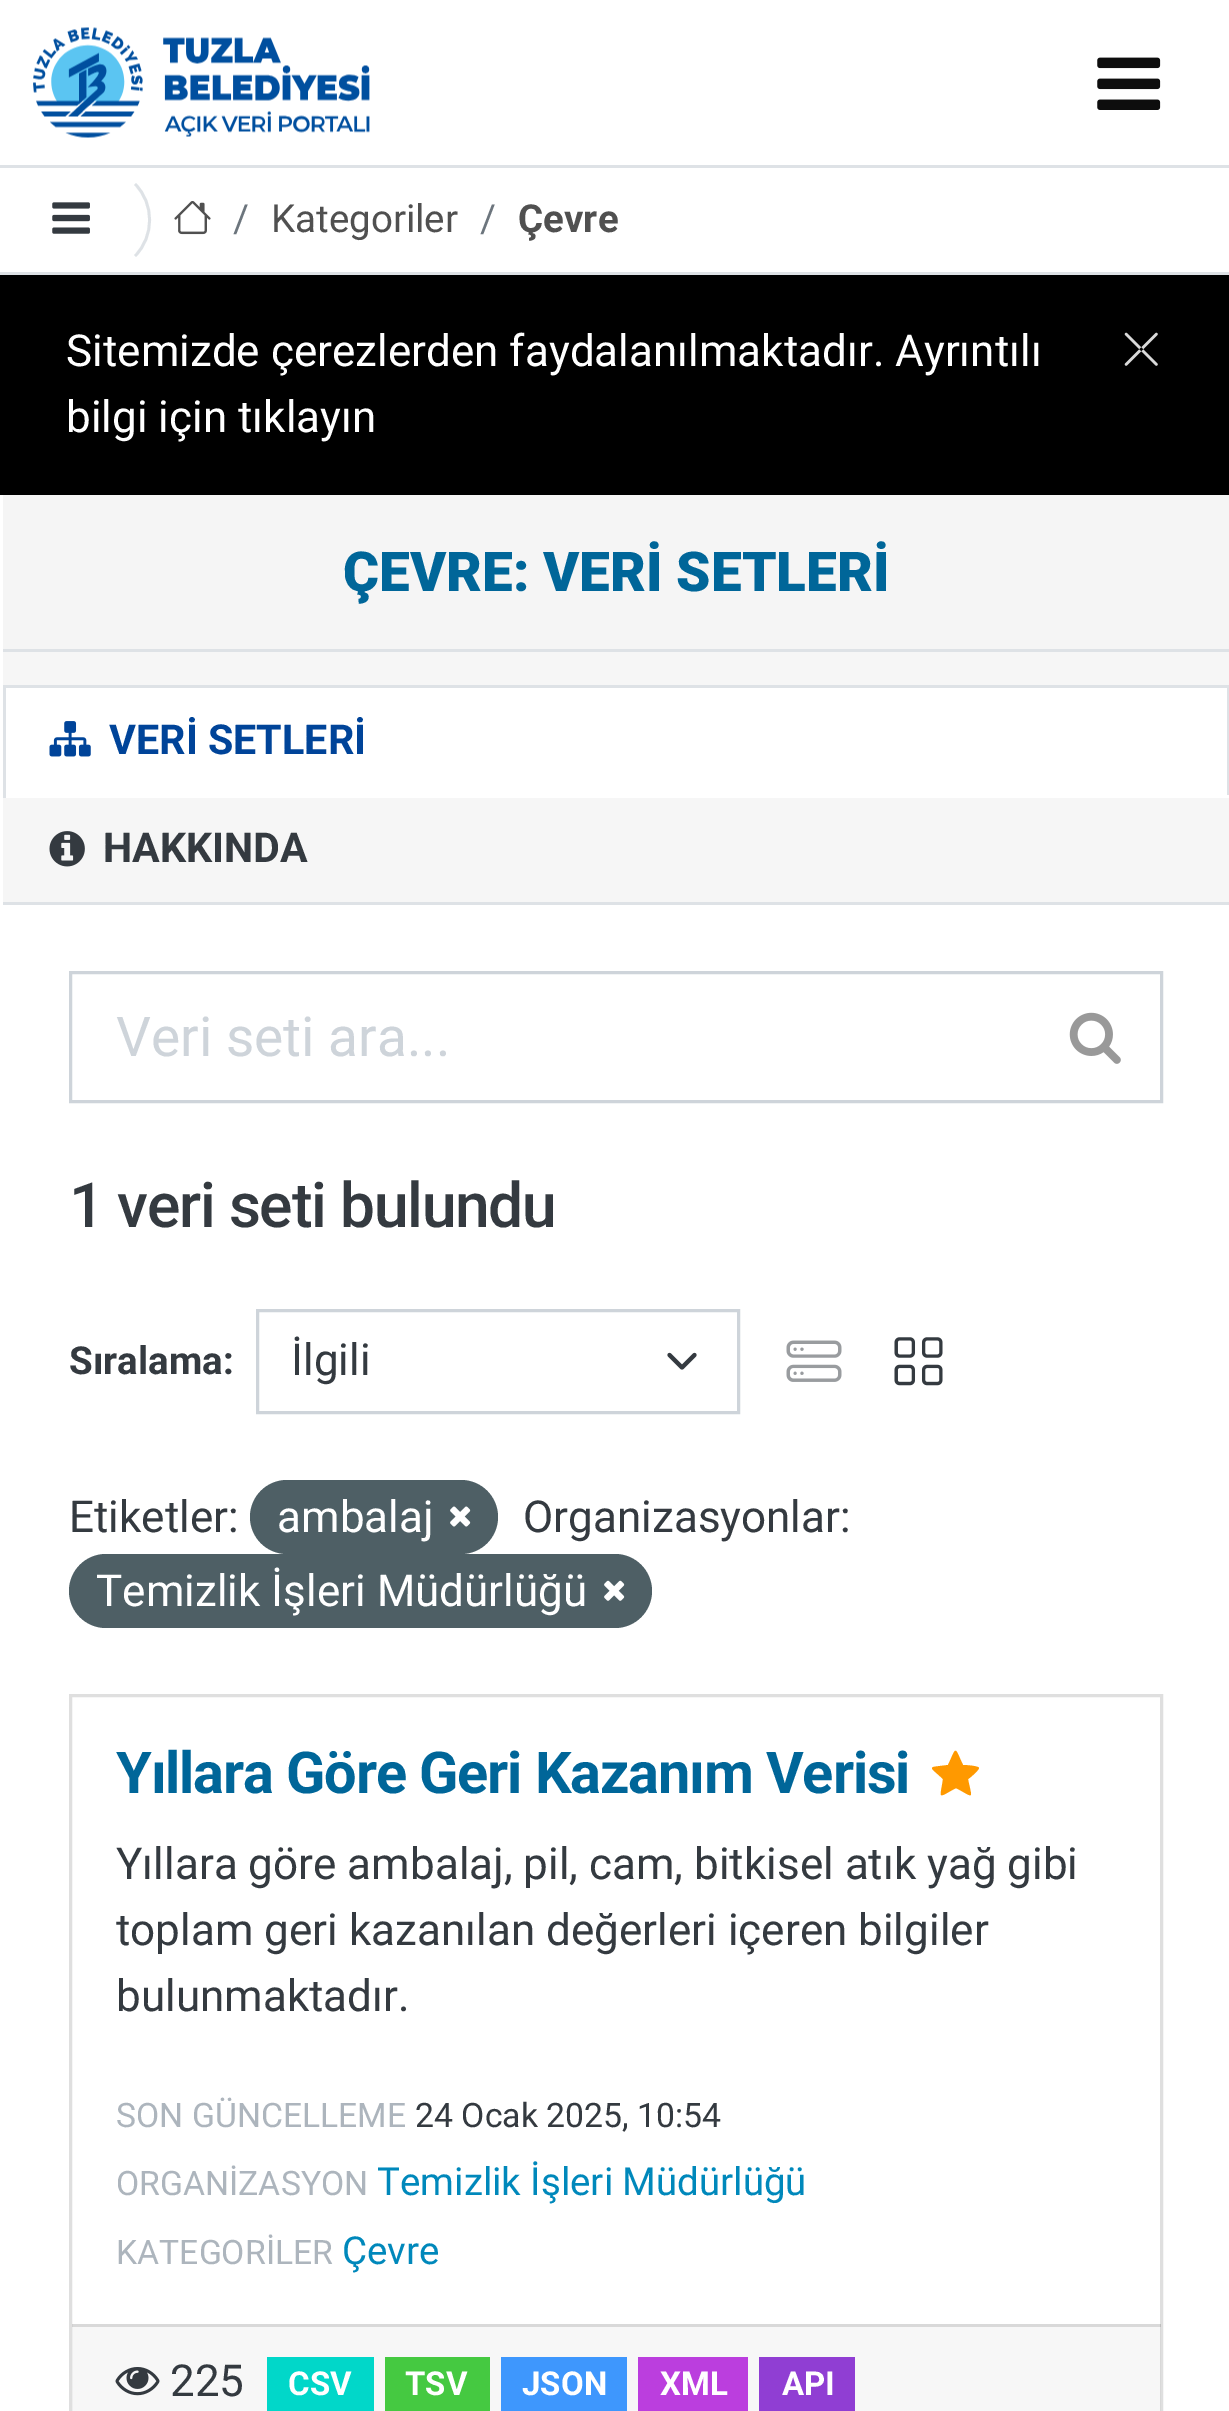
%!PS
<< /PageSize [1229 2411] /PageUsesTransparency true >> setpagedevice
/mt/moveto load def
/li/lineto load def
/ct/curveto load def
/cp/closepath load def
/fl/fill load def
/st/stroke load def
/lw/setlinewidth load def
/co { dup -16 bitshift 255 div exch dup -8 bitshift 255 and 255 div exch 255 and 255 div setrgbcolor } def
/fn { [ exch dup neg 0 0 3 -1 roll 0 0 ] selectfont } def
/tx { co fn moveto show } def
/bx { co rectfill } def
/al { dup .setfillconstantalpha .setstrokeconstantalpha } def
/rr { 5 dict begin { /r /h /w /y /x } { exch def } forall
  x r add y moveto x w add y 2 copy h add r arct x w add y h add x 1 index r arct
  x y h add x y r arct x y 2 copy exch w add exch r arct closepath end } def
/im { 5 dict begin { /h /w /y /x /name } { exch def } forall
  gsave x y translate w h scale
  w h 8 [w 0 0 h 0 0] name (r) file false 3 colorimage grestore end } def
0 .pushpdf14devicefilter
0 2411 translate 1 -1 scale
4 setmiterlimit
0 0 1229 2411 16#FFFFFF bx
(media/1.raw) 33 27 337 111 im
(media/2.raw) 1097 57 64 53 im
0 165 1229 3 16#DEE2E6 bx
0 272 1229 3 16#DEE2E6 bx
2.8 lw
135 184 mt 154.5 203.5 154.5 236.5 135 256 ct st
(media/3.raw) 52 202 38 32 im
(media/4.raw) 174 201 37 34 im
0 275 1229 220 16#000000 bx
(media/5.raw) 1124 332 34 34 im
3 495 1226 154 16#F5F5F5 bx
3 649 1226 3 16#DEE2E6 bx
3 652 1226 250 16#F6F6F6 bx
3 902 1226 3 16#DEE2E6 bx
6 688 1221 107 16#FFFFFF bx
3 685 1226 3 16#DEE2E6 bx
1227 685 2 113 16#DEE2E6 bx
3 795 1226 3 16#FFFFFF bx
3 685 3 113 16#DEE2E6 bx
(media/6.raw) 49 721 42 36 im
(media/7.raw) 49 831 36 36 im
16#CED4DA co
3 lw
70.5 972.5 1091 129 rectstroke
(media/8.raw) 1069 1012 52 52 im
16#343A40 co
4.1 lw
1 setlinecap
1 setlinejoin
669.5 1355 mt 682 1367.5 li 694.5 1355 li st
16#CED4DA co
3 lw
0 setlinecap
0 setlinejoin
257.5 1310.5 481 102 rectstroke
(media/9.raw) 786 1340 56 42 im
(media/10.raw) 894 1337 49 49 im
16#4E5F65 co
250 1480 248 74 37 rr fl
(media/11.raw) 450 1506 21 21 im
69 1554 583 74 37 rr fl
(media/12.raw) 604 1580 21 21 im
16#DFDFDF co
70.5 1695.5 1091 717 rectstroke
16#FF9900 co
979 1768 mt 979 1770 970 1778 968 1779 ct 972 1800 975 1798 956 1788 ct 937 1798 940 1800 943 1779 ct 928 1765 927 1768 948 1765 ct 957 1746 954 1746 963 1765 ct 966 1765 979 1766 979 1768 ct cp fl
0.03 al
72 2324 1089 87 16#000000 bx
0.12 al
72 2324 1089 3 16#000000 bx
1 al
(media/13.raw) 115 2367 45 29 im
267 2357 107 54 16#01D7C9 bx
385 2357 105 54 16#45C941 bx
501 2357 126 54 16#3E97FD bx
638 2357 110 54 16#BB3EDE bx
759 2357 96 54 16#903ED3 bx
(/) 233 232 /Roboto-Regular 38.5 16#6C757D tx
(Kategoriler) 271 232 /Roboto-Regular 38.5 16#505050 tx
(/) 480 232 /Roboto-Regular 38.5 16#6C757D tx
(Çevre) 518 232 /Roboto-Bold 38.5 16#505050 tx
(Sitemizde çerezlerden faydalanılmaktadır. Ayrıntılı) 66 366 /Roboto-Regular 44 16#FFFFFF tx
(bilgi için tıklayın) 66 432 /Roboto-Regular 44 16#FFFFFF tx
(ÇEVRE: VERİ SETLERİ) 343 591 /Roboto-Black 55 16#006699 tx
(VERİ SETLERİ) 109 754 /Roboto-Bold 41.25 16#004499 tx
(HAKKINDA) 103 862 /Roboto-Bold 41.25 16#343A40 tx
(Veri seti ara...) 116 1056 /Roboto-Regular 55 16#CED4DA tx
/Roboto-Medium 62.25 fn
16#343A40 co
69 1227 mt -1.25 0 (1 veri seti bulundu) ashow
(Sıralama:) 69 1374 /Roboto-Bold 38.5 16#343A40 tx
(İlgili) 291 1375 /Roboto-Regular 44 16#343A40 tx
(Etiketler:) 69 1532 /Roboto-Regular 44 16#343A40 tx
(ambalaj) 277 1532 /Roboto-Regular 44 16#FFFFFF tx
(Organizasyonlar:) 523 1532 /Roboto-Regular 44 16#343A40 tx
(Temizlik İşleri Müdürlüğü) 96 1606 /Roboto-Regular 44 16#FFFFFF tx
/Roboto-Bold 57.75 fn
16#006699 co
116 1793 mt -1.15 0 (Yıllara Göre Geri Kazanım Verisi) ashow
(Yıllara göre ambalaj, pil, cam, bitkisel atık yağ gibi) 116 1879 /Roboto-Regular 44 16#343A40 tx
(toplam geri kazanılan değerleri içeren bilgiler) 116 1945 /Roboto-Regular 44 16#343A40 tx
(bulunmaktadır.) 116 2011 /Roboto-Regular 44 16#343A40 tx
(SON GÜNCELLEME) 116 2127 /Roboto-Regular 33.75 16#ADB5BD tx
(24 Ocak 2025, 10:54) 415 2127 /Roboto-Regular 33.75 16#343A40 tx
(ORGANİZASYON) 116 2195 /Roboto-Regular 33.75 16#ADB5BD tx
(Temizlik İşleri Müdürlüğü) 377 2195 /Roboto-Regular 38.5 16#0088BB tx
(KATEGORİLER) 116 2264 /Roboto-Regular 33.75 16#ADB5BD tx
(Çevre) 342 2264 /Roboto-Regular 38.5 16#0088BB tx
(225) 170 2396 /Roboto-Regular 44 16#343A40 tx
(CSV) 288 2395 /Roboto-Bold 33 16#FFFFFF tx
(TSV) 405 2395 /Roboto-Bold 33 16#FFFFFF tx
(JSON) 522 2395 /Roboto-Bold 33 16#FFFFFF tx
(XML) 660 2395 /Roboto-Bold 33 16#FFFFFF tx
(API) 782 2395 /Roboto-Bold 33 16#FFFFFF tx
.poppdf14devicefilter showpage
